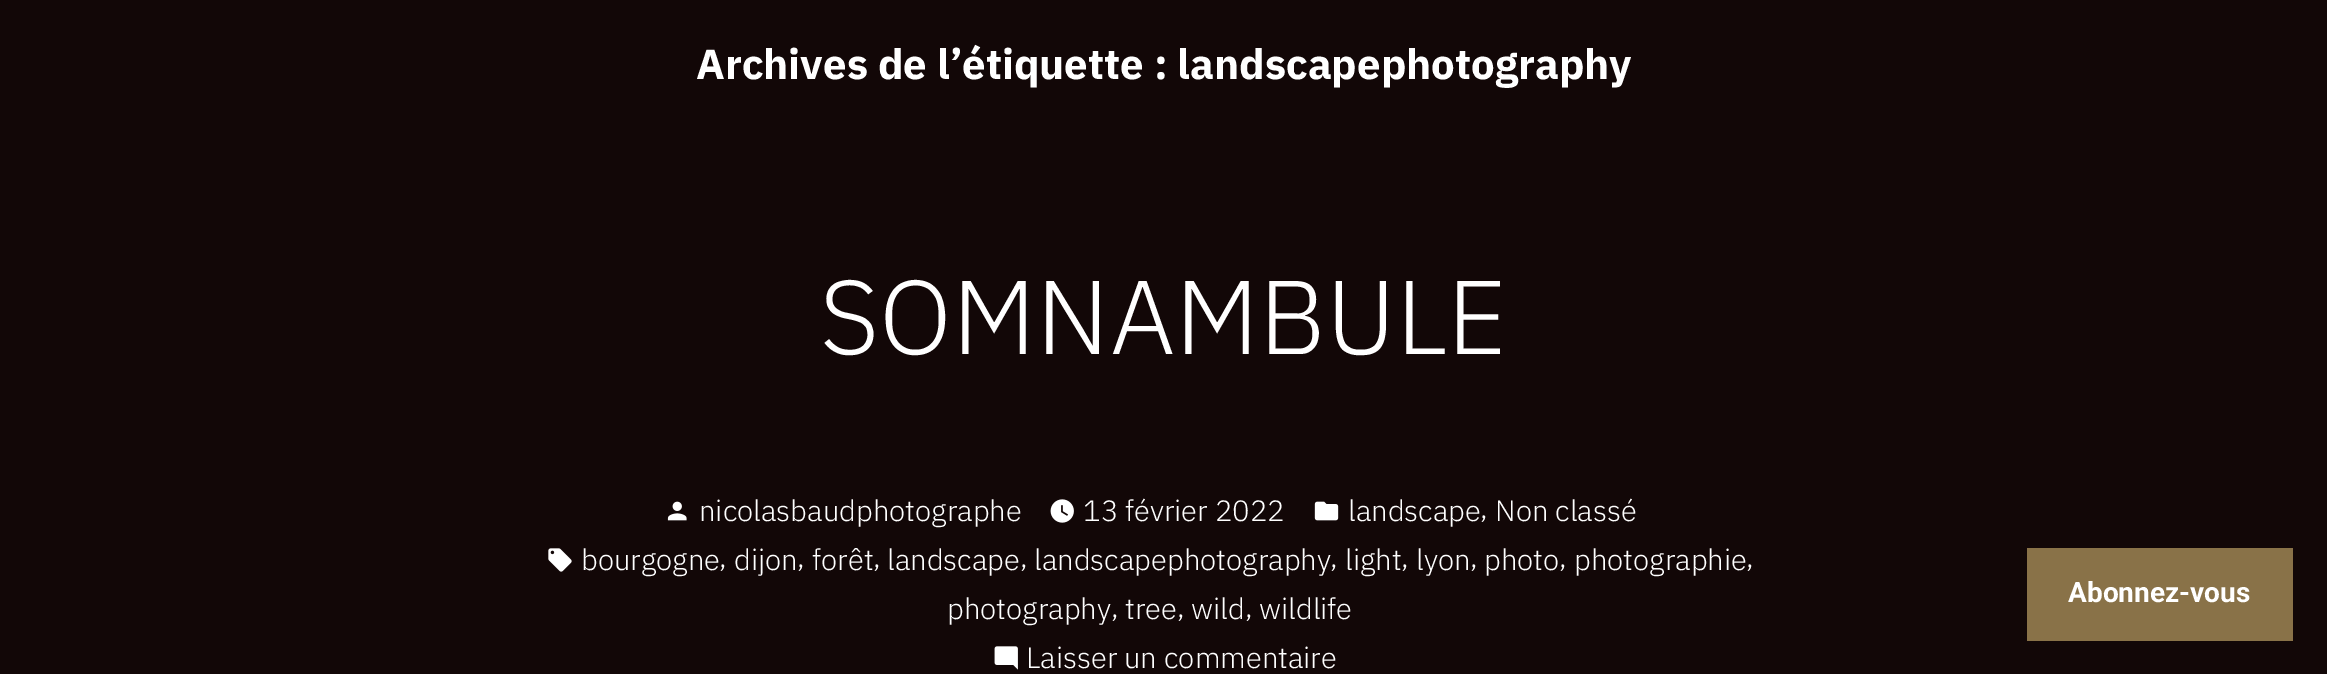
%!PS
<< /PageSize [2327 674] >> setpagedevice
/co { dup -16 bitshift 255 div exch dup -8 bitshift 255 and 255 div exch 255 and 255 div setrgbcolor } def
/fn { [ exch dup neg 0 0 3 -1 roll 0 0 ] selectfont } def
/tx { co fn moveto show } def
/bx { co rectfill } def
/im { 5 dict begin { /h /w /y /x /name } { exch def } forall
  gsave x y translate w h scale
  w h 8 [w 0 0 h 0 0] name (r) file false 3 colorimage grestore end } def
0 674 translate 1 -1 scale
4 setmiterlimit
0 0 2327 674 16#120707 bx
(media/1.raw) 667 501 20 20 im
(media/2.raw) 1050 499 24 24 im
(media/3.raw) 1314 501 25 20 im
(media/4.raw) 548 548 24 24 im
(media/5.raw) 994 646 24 24 im
2027 548 266 93 16#897248 bx
(Archives de l’étiquette : landscapephotography) 696 79 /IBMPlexSans-Bold 42 16#FFFFFF tx
(SOMNAMBULE) 820 354 /IBMPlexSans-Light 104.5 16#FFFFFF tx
(nicolasbaudphotographe) 699 521 /IBMPlexSans-Light 29.25 16#FFFFFF tx
(13 février 2022) 1083 521 /IBMPlexSans-Light 29.25 16#FFFFFF tx
(landscape) 1348 521 /IBMPlexSans-Light 29.25 16#FFFFFF tx
(,) 1480 518 /IBMPlexSans-Light 29.25 16#FFFFFF tx
(Non classé) 1495 521 /IBMPlexSans-Light 29.25 16#FFFFFF tx
(bourgogne) 581 570 /IBMPlexSans-Light 29.25 16#FFFFFF tx
(,) 719 567 /IBMPlexSans-Light 29.25 16#FFFFFF tx
(dijon) 734 570 /IBMPlexSans-Light 29.25 16#FFFFFF tx
(,) 797 567 /IBMPlexSans-Light 29.25 16#FFFFFF tx
(forêt) 812 570 /IBMPlexSans-Light 29.25 16#FFFFFF tx
(,) 873 567 /IBMPlexSans-Light 29.25 16#FFFFFF tx
(landscape) 887 570 /IBMPlexSans-Light 29.25 16#FFFFFF tx
(,) 1020 567 /IBMPlexSans-Light 29.25 16#FFFFFF tx
(landscapephotography) 1034 570 /IBMPlexSans-Light 29.25 16#FFFFFF tx
(,) 1330 567 /IBMPlexSans-Light 29.25 16#FFFFFF tx
(light) 1345 570 /IBMPlexSans-Light 29.25 16#FFFFFF tx
(,) 1401 567 /IBMPlexSans-Light 29.25 16#FFFFFF tx
(lyon) 1416 570 /IBMPlexSans-Light 29.25 16#FFFFFF tx
(,) 1470 567 /IBMPlexSans-Light 29.25 16#FFFFFF tx
(photo) 1484 570 /IBMPlexSans-Light 29.25 16#FFFFFF tx
(,) 1559 567 /IBMPlexSans-Light 29.25 16#FFFFFF tx
(photographie) 1574 570 /IBMPlexSans-Light 29.25 16#FFFFFF tx
(,) 1746 567 /IBMPlexSans-Light 29.25 16#FFFFFF tx
(photography) 947 619 /IBMPlexSans-Light 29.25 16#FFFFFF tx
(,) 1111 617 /IBMPlexSans-Light 29.25 16#FFFFFF tx
(tree) 1125 619 /IBMPlexSans-Light 29.25 16#FFFFFF tx
(,) 1177 617 /IBMPlexSans-Light 29.25 16#FFFFFF tx
(wild) 1191 619 /IBMPlexSans-Light 29.25 16#FFFFFF tx
(,) 1245 617 /IBMPlexSans-Light 29.25 16#FFFFFF tx
(wildlife) 1259 619 /IBMPlexSans-Light 29.25 16#FFFFFF tx
(Laisser un commentaire) 1026 668 /IBMPlexSans-Light 29.25 16#FFFFFF tx
(Abonnez-vous) 2068 602 /Roboto-Bold 28 16#FFFFFF tx
showpage
